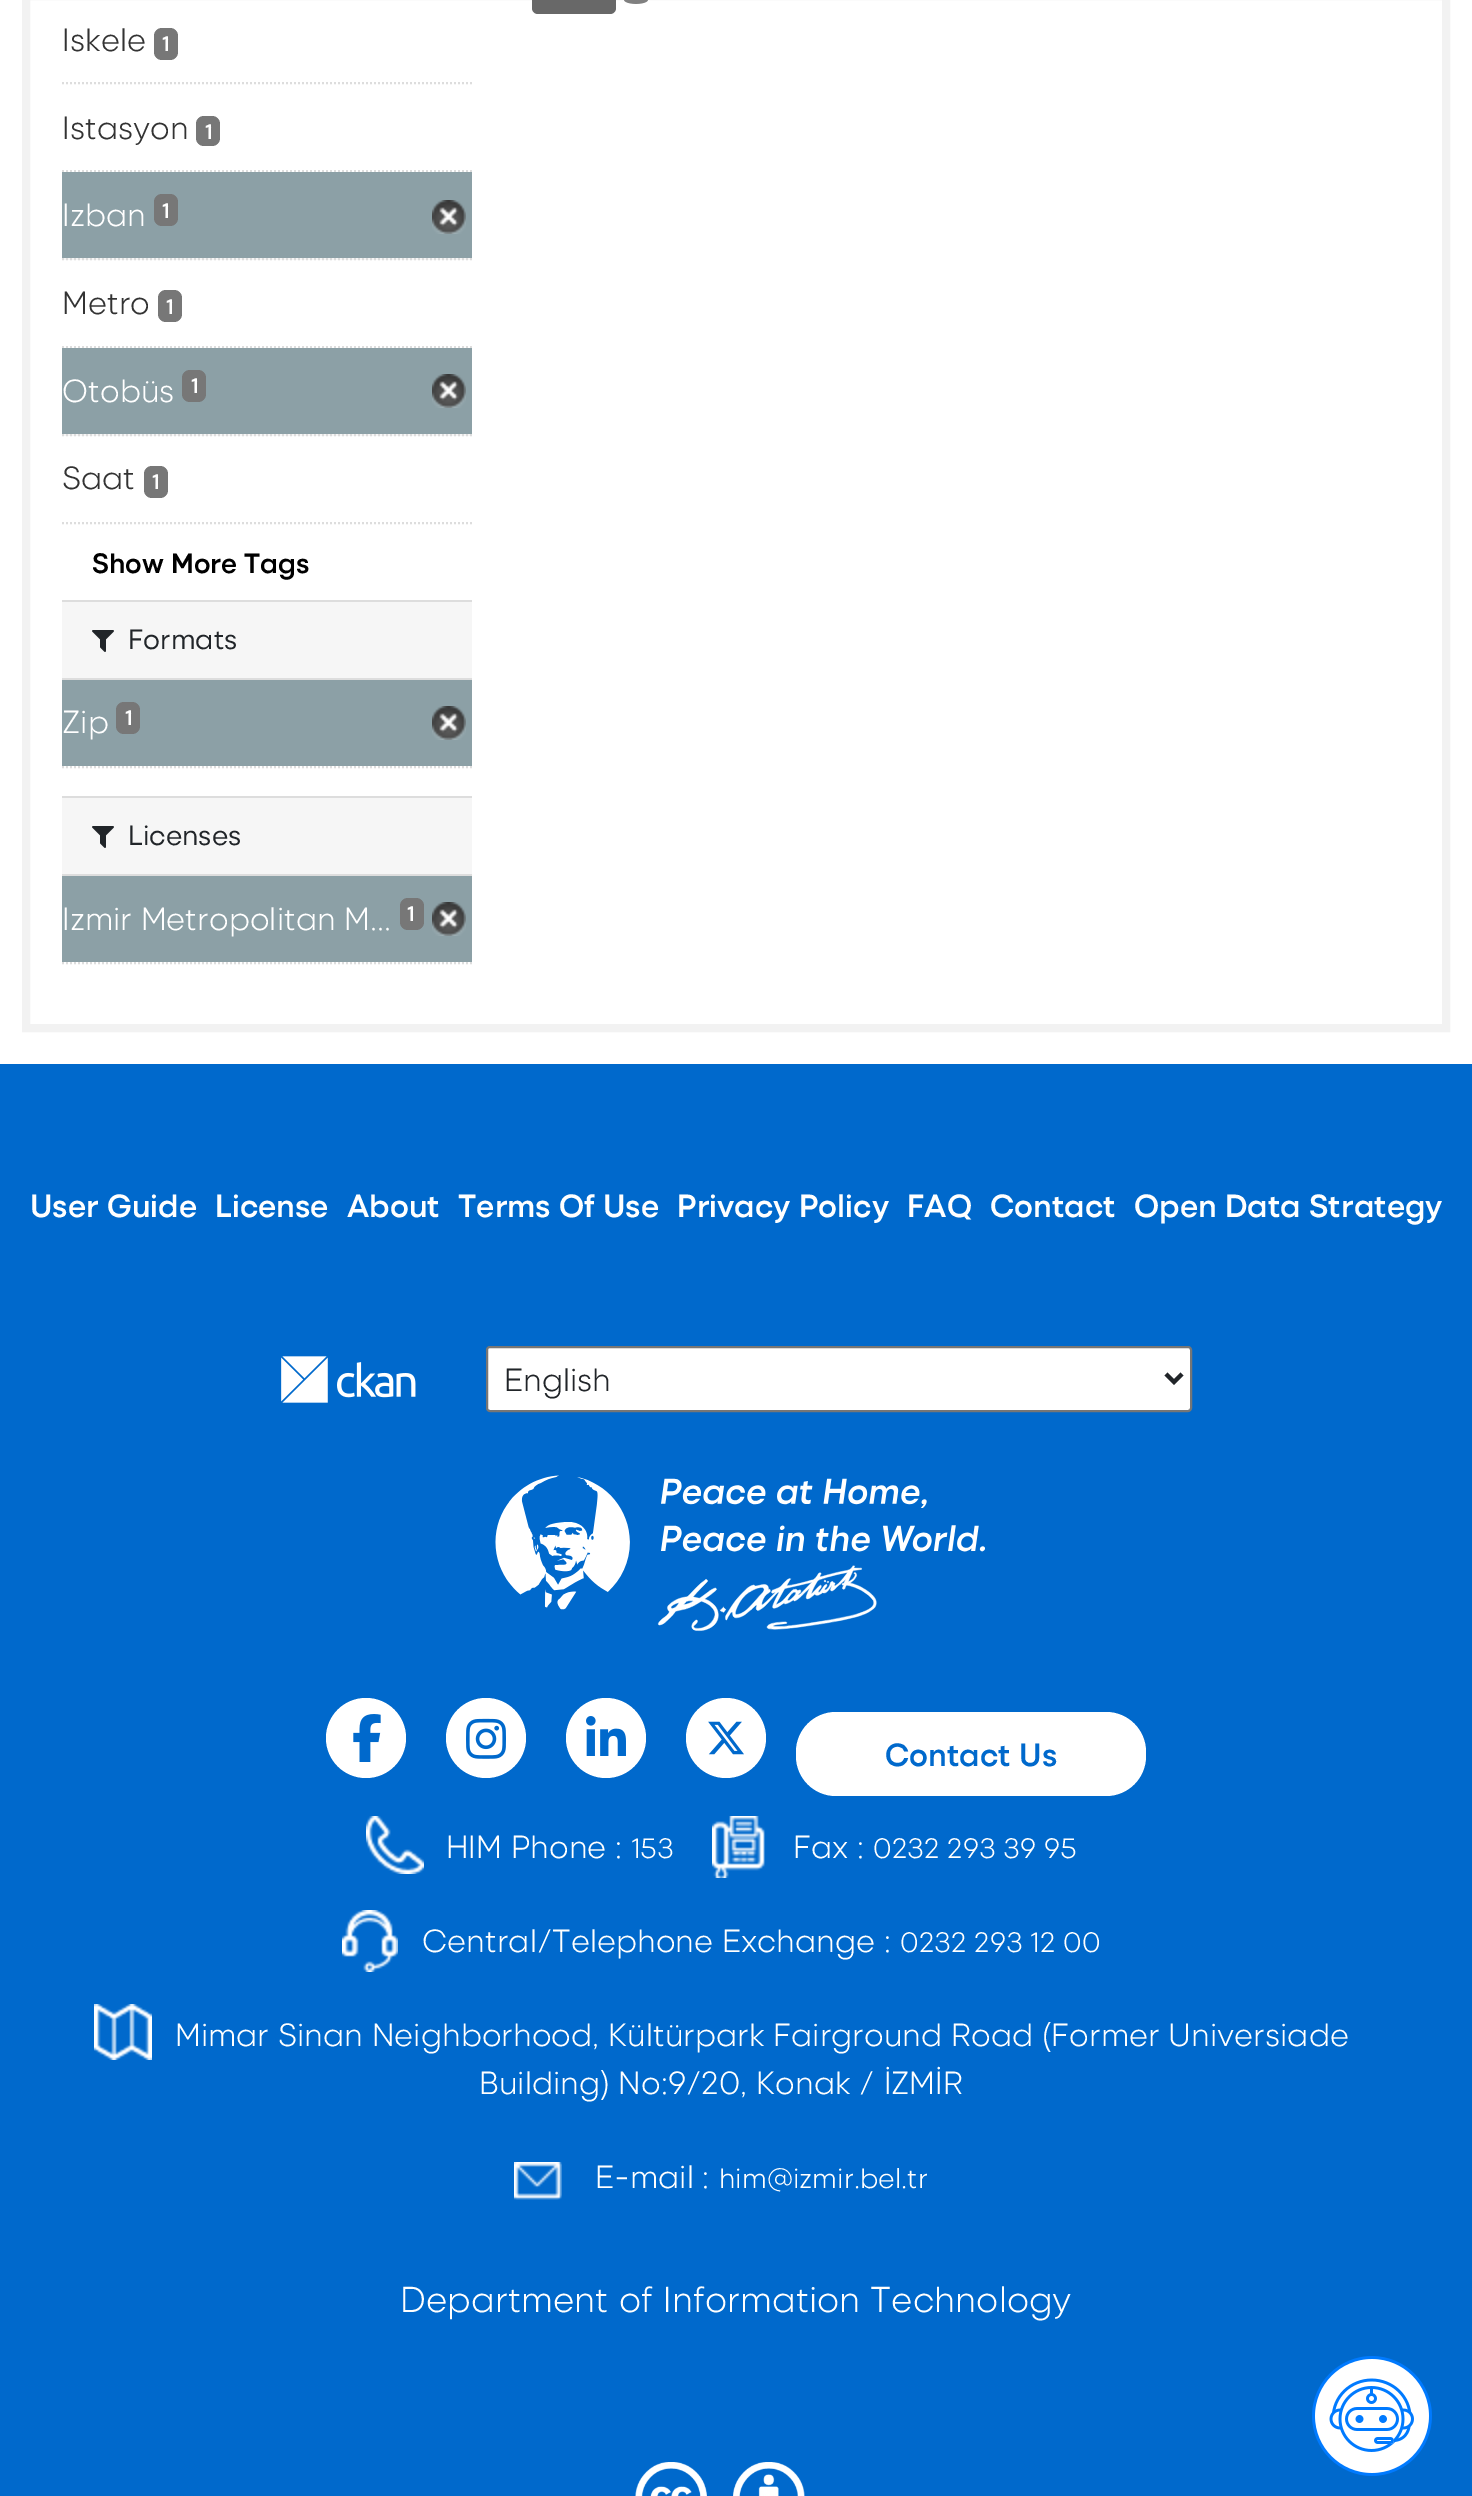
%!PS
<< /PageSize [1472 2496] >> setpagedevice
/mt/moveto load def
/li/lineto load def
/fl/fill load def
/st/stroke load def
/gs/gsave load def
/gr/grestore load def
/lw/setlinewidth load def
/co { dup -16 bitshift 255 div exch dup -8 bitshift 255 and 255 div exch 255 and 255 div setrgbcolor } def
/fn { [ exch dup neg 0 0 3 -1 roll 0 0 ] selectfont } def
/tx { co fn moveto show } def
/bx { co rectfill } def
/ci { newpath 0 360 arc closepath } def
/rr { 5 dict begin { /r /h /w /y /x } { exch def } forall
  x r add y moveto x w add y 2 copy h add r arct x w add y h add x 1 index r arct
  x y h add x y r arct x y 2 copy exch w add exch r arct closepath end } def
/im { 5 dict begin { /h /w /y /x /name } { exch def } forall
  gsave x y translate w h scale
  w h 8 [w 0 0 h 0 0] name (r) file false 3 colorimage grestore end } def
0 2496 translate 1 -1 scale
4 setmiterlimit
0 0 1472 2496 16#FFFFFF bx
16#F2F2F2 co
8 lw
26 -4 1420 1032 rectstroke
16#686868 co
532 -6 84 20 6 rr fl
(media/1.raw) 624 0 24 4 im
16#DDDDDD co
2 lw
[2 2] 0 setdash
62 83 mt 472 83 li st
16#777777 co
154 28 24 32 8 rr fl
16#DDDDDD co
62 171 mt 472 171 li st
16#777777 co
196 116 24 30 8 rr fl
64 258 406 2 16#F6F6F6 bx
16#DDDDDD co
62 259 mt 472 259 li st
62 172 410 86 16#8CA0A6 bx
16#777777 co
154 194 24 32 8 rr fl
(media/2.raw) 432 200 34 34 im
16#DDDDDD co
62 347 mt 472 347 li st
16#777777 co
158 290 24 32 8 rr fl
64 434 406 2 16#F6F6F6 bx
16#DDDDDD co
62 435 mt 472 435 li st
62 348 410 86 16#8CA0A6 bx
16#777777 co
182 370 24 32 8 rr fl
(media/2.raw) 432 374 34 34 im
144 466 24 32 8 rr fl
16#DDDDDD co
62 523 mt 472 523 li st
62 602 410 76 16#F6F6F6 bx
62 600 410 2 16#DDDDDD bx
62 678 410 2 16#DDDDDD bx
(media/3.raw) 92 630 22 22 im
62 680 410 86 16#8CA0A6 bx
16#777777 co
116 702 24 32 8 rr fl
(media/2.raw) 432 706 34 34 im
16#DDDDDD co
62 767 mt 472 767 li st
62 798 410 76 16#F6F6F6 bx
62 796 410 2 16#DDDDDD bx
62 874 410 2 16#DDDDDD bx
(media/3.raw) 92 826 22 22 im
62 876 410 86 16#8CA0A6 bx
16#777777 co
400 898 24 32 8 rr fl
(media/2.raw) 432 902 34 34 im
16#DDDDDD co
62 963 mt 472 963 li st
0 1064 1472 1432 16#0069CC bx
(media/4.raw) 281 1356 135 47 im
16#FFFFFF co
487 1347 704 64 3 rr gs fl gr
16#767676 co
[] 0 setdash
st
16#212529 co
4 lw
1166 1374 mt 1174 1382 li 1182 1374 li st
(media/5.raw) 1312 2356 120 120 im
(media/6.raw) 495 1475 490 157 im
16#FFFFFF co
366 1738 40 ci fl
(media/7.raw) 353 1714 28 48 im
486 1738 40 ci fl
(media/8.raw) 466 1718 40 41 im
606 1738 40 ci fl
(media/9.raw) 586 1716 40 40 im
726 1738 40 ci fl
(media/10.raw) 708 1721 36 34 im
796 1712 350 84 40 rr fl
(media/11.raw) 366 1816 58 58 im
(media/12.raw) 712 1816 53 62 im
(media/13.raw) 342 1910 56 62 im
(media/14.raw) 94 2004 58 56 im
(media/15.raw) 514 2162 48 38 im
(media/16.raw) 635 2462 170 34 im
(Iskele) 62 51 /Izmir-Light 32 16#333333 tx
(1) 162 51 /Izmir-SemiBold 21 16#FFFFFF tx
(Istasyon) 62 139 /Izmir-Light 32 16#333333 tx
(1) 205 139 /Izmir-SemiBold 21 16#FFFFFF tx
(Izban) 62 226 /Izmir-Light 32 16#FFFFFF tx
(1) 162 218 /Izmir-SemiBold 21 16#FFFFFF tx
(Metro) 62 314 /Izmir-Light 32 16#333333 tx
(1) 166 314 /Izmir-SemiBold 21 16#FFFFFF tx
(Otobüs) 62 402 /Izmir-Light 32 16#FFFFFF tx
(1) 191 393 /Izmir-SemiBold 21 16#FFFFFF tx
(Saat) 62 489 /Izmir-Light 32 16#333333 tx
(1) 152 489 /Izmir-SemiBold 21 16#FFFFFF tx
(Show More Tags) 92 573 /Izmir-SemiBold 28 16#000000 tx
(Formats) 128 649 /Izmir-Regular 28 16#212529 tx
(Zip) 62 733 /Izmir-Light 32 16#FFFFFF tx
(1) 125 725 /Izmir-SemiBold 21 16#FFFFFF tx
(Licenses) 128 845 /Izmir-Regular 28 16#212529 tx
(Izmir Metropolitan M...) 62 930 /Izmir-Light 32 16#FFFFFF tx
(1) 407 921 /Izmir-SemiBold 21 16#FFFFFF tx
(User Guide) 30 1217 /Izmir-SemiBold 32 16#FFFFFF tx
(License) 215 1217 /Izmir-SemiBold 32 16#FFFFFF tx
(About) 347 1217 /Izmir-SemiBold 32 16#FFFFFF tx
(Terms Of Use) 458 1217 /Izmir-SemiBold 32 16#FFFFFF tx
(Privacy Policy) 677 1217 /Izmir-SemiBold 32 16#FFFFFF tx
(FAQ) 907 1217 /Izmir-SemiBold 32 16#FFFFFF tx
(Contact) 990 1217 /Izmir-SemiBold 32 16#FFFFFF tx
(Open Data Strategy) 1134 1217 /Izmir-SemiBold 32 16#FFFFFF tx
(English) 504 1391 /Izmir-Light 32 16#212529 tx
(Contact Us) 885 1766 /Izmir-SemiBold 32 16#0069CC tx
(HIM Phone :) 446 1858 /Izmir-Light 32 16#FFFFFF tx
(153) 631 1858 /Izmir-Light 28 16#FFFFFF tx
(Fax :) 793 1858 /Izmir-Light 32 16#FFFFFF tx
(0232 293 39 95) 873 1858 /Izmir-Light 28 16#FFFFFF tx
(Central/Telephone Exchange :) 422 1952 /Izmir-Light 32 16#FFFFFF tx
(0232 293 12 00) 900 1952 /Izmir-Light 28 16#FFFFFF tx
(Mimar Sinan Neighborhood, Kültürpark Fairground Road \(Former Universiade) 175 2046 /Izmir-Light 32 16#FFFFFF tx
(Building\) No:9/20, Konak / İZMİR) 479 2094 /Izmir-Light 32 16#FFFFFF tx
(E-mail :) 595 2188 /Izmir-Light 32 16#FFFFFF tx
(him@izmir.bel.tr) 719 2188 /Izmir-Light 28 16#FFFFFF tx
(Department of Information Technology) 400 2312 /Izmir-Light 36 16#FFFFFF tx
showpage
